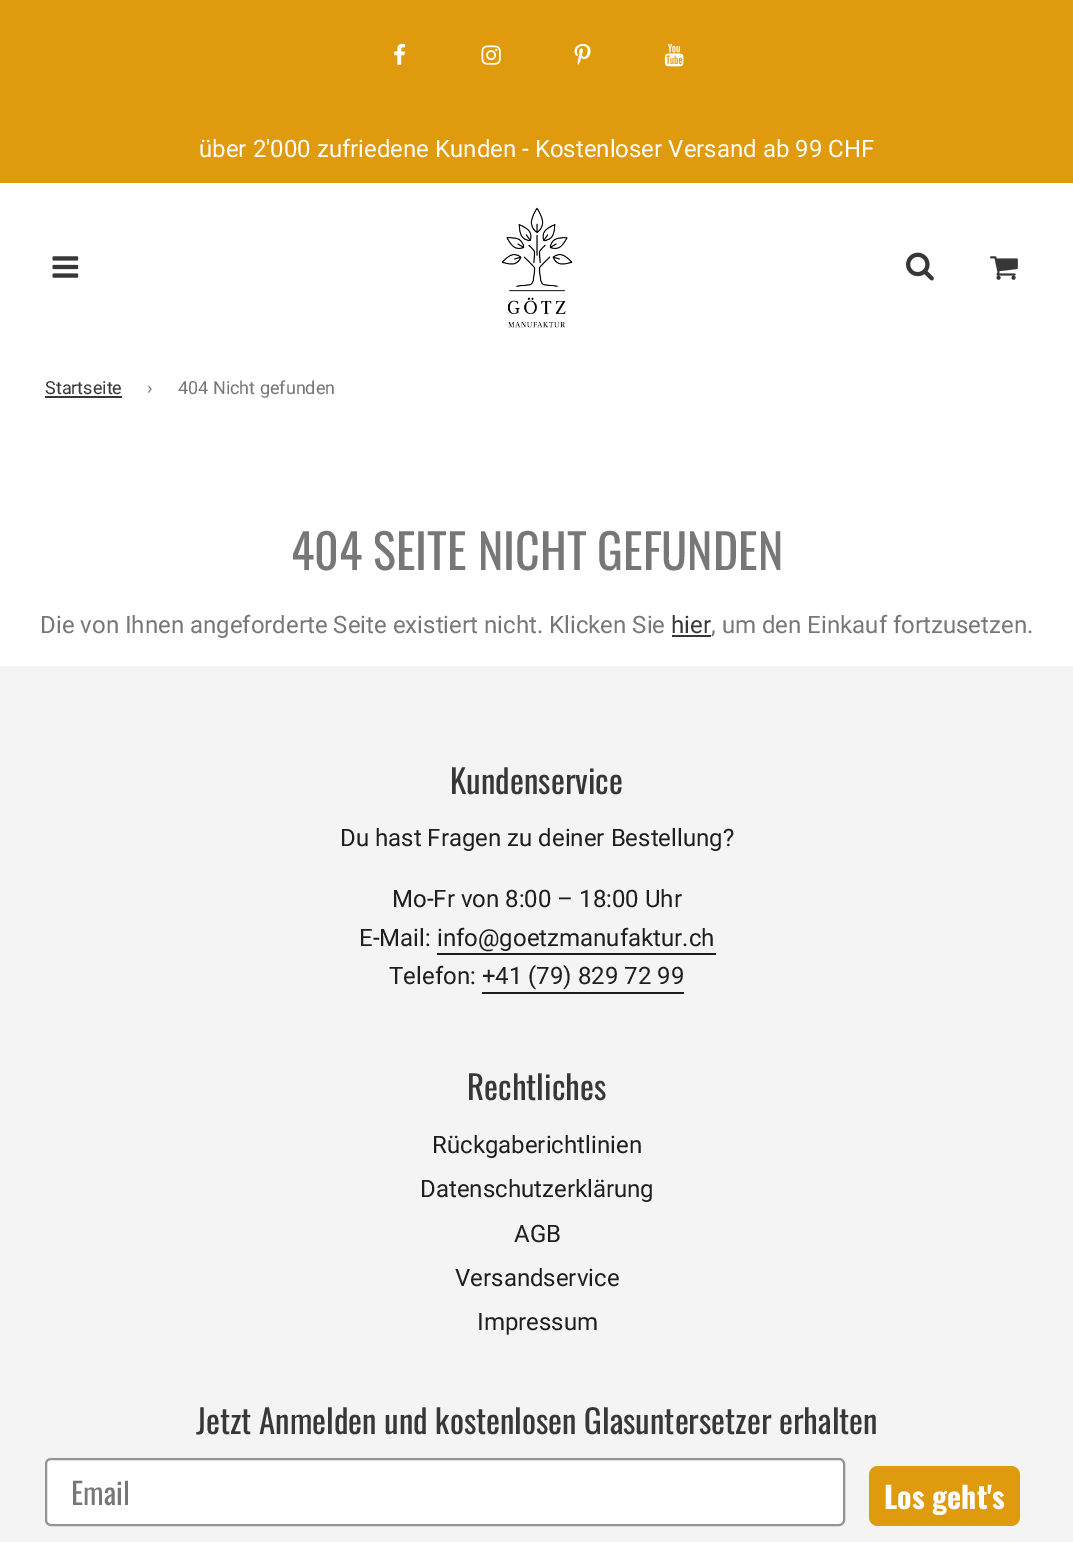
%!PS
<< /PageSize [1073 1542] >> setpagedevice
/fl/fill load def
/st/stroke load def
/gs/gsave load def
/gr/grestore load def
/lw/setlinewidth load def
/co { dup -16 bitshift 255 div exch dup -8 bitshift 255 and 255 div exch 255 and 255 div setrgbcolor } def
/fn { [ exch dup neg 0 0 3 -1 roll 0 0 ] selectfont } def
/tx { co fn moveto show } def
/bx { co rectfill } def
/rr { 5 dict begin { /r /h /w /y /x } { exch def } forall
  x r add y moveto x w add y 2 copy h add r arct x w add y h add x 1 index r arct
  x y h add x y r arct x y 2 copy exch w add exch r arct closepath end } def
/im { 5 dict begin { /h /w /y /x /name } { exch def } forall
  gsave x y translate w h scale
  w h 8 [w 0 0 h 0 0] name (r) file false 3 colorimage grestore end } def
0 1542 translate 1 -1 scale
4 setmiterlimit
0 0 1073 1542 16#FFFFFF bx
0 0 1073 183 16#E09A0E bx
(media/1.raw) 394 43 12 22 im
(media/2.raw) 481 45 20 20 im
(media/3.raw) 574 43 17 22 im
(media/4.raw) 664 43 20 24 im
(media/5.raw) 52 256 27 22 im
(media/6.raw) 501 207 72 121 im
(media/7.raw) 906 252 28 29 im
(media/8.raw) 990 256 28 24 im
45 396 77 2 16#373737 bx
672 635 39 2 16#373737 bx
0 666 1073 876 16#F4F4F4 bx
437 953 279 2 16#1E1E1E bx
482 992 202 2 16#1E1E1E bx
16#FFFFFF co
46 1459 798 66 5 rr gs fl gr
16#949596 co
2 lw
st
16#E09A0E co
869 1466 151 60 9 rr fl
(über 2'000 zufriedene Kunden - Kostenloser Versand ab 99 CHF) 199 157 /Roboto-Regular 24 16#FFFFFF tx
(Startseite) 45 394 /Roboto-Regular 18 16#373737 tx
(›) 147 394 /Roboto-Regular 18 16#777777 tx
(404 Nicht gefunden) 178 394 /Roboto-Regular 18 16#777777 tx
(404 SEITE NICHT GEFUNDEN) 291 570 /Oswald-Regular 48 16#777777 tx
(Die von Ihnen angeforderte Seite existiert nicht. Klicken Sie) 40 633 /Roboto-Regular 24 16#777777 tx
(hier) 671 633 /Roboto-Regular 24 16#373737 tx
(, um den Einkauf fortzusetzen.) 711 633 /Roboto-Regular 24 16#777777 tx
(Kundenservice) 450 794 /Oswald-Regular 33 16#373737 tx
(Du hast Fragen zu deiner Bestellung?) 340 846 /Roboto-Regular 24 16#1E1E1E tx
(Mo-Fr von 8:00 – 18:00 Uhr) 392 907 /Roboto-Regular 24 16#1E1E1E tx
(E-Mail: info@goetzmanufaktur.ch) 359 946 /Roboto-Regular 24 16#1E1E1E tx
(Telefon: +41 \(79\) 829 72 99) 389 984 /Roboto-Regular 24 16#1E1E1E tx
(Rechtliches) 467 1100 /Oswald-Regular 33 16#373737 tx
(Rückgaberichtlinien) 432 1153 /Roboto-Regular 24 16#1E1E1E tx
(Datenschutzerklärung) 420 1197 /Roboto-Regular 24 16#1E1E1E tx
(AGB) 514 1242 /Roboto-Regular 24 16#1E1E1E tx
(Versandservice) 455 1286 /Roboto-Regular 24 16#1E1E1E tx
(Impressum) 477 1330 /Roboto-Regular 24 16#1E1E1E tx
(Jetzt Anmelden und kostenlosen Glasuntersetzer erhalten) 196 1434 /Oswald-Regular 33 16#373737 tx
(Email) 71 1505 /Oswald-Regular 30 16#777777 tx
(Los geht's) 884 1509 /Oswald-Bold 30 16#FFFFFF tx
showpage
